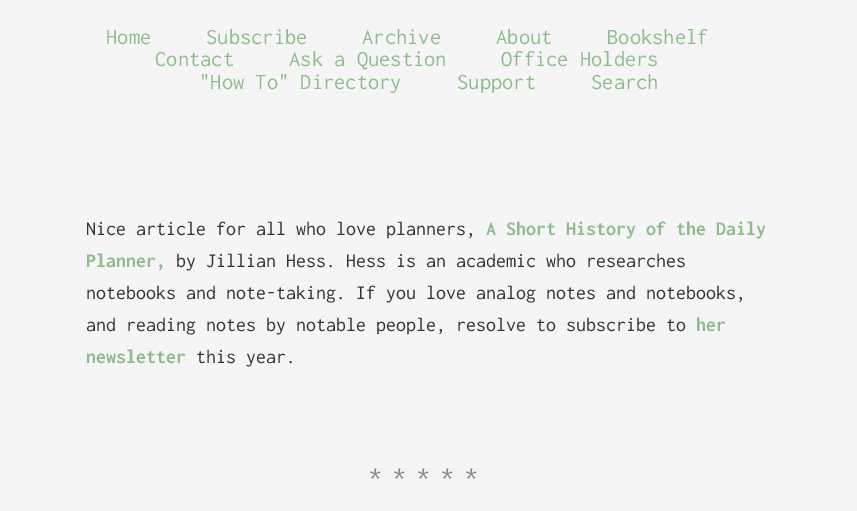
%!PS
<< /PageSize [857 511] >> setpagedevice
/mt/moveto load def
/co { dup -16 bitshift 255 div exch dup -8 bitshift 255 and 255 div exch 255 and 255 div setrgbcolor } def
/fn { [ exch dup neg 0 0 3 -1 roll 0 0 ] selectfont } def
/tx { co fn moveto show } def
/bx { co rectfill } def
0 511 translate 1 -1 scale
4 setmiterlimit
0 0 857 511 16#F5F5F5 bx
(Home) 106 44 /Inconsolata-Regular 22.5 16#8FBC8F tx
(Subscribe) 206 44 /Inconsolata-Regular 22.5 16#8FBC8F tx
(Archive) 362 44 /Inconsolata-Regular 22.5 16#8FBC8F tx
(About) 496 44 /Inconsolata-Regular 22.5 16#8FBC8F tx
(Bookshelf) 607 44 /Inconsolata-Regular 22.5 16#8FBC8F tx
(Contact) 155 66 /Inconsolata-Regular 22.5 16#8FBC8F tx
(Ask a Question) 289 66 /Inconsolata-Regular 22.5 16#8FBC8F tx
(Office Holders) 501 66 /Inconsolata-Regular 22.5 16#8FBC8F tx
("How To" Directory) 199 89 /Inconsolata-Regular 22.5 16#8FBC8F tx
(Support) 457 89 /Inconsolata-Regular 22.5 16#8FBC8F tx
(Search) 591 89 /Inconsolata-Regular 22.5 16#8FBC8F tx
(Nice article for all who love planners,) 86 235 /Inconsolata-Regular 20 16#333333 tx
(A Short History of the Daily) 486 235 /Inconsolata-Bold 20 16#8FBC8F tx
(Planner,) 86 267 /Inconsolata-Bold 20 16#8FBC8F tx
(by Jillian Hess. Hess is an academic who researches) 176 267 /Inconsolata-Regular 20 16#333333 tx
(notebooks and note-taking. If you love analog notes and notebooks,) 86 299 /Inconsolata-Regular 20 16#333333 tx
(and reading notes by notable people, resolve to subscribe to) 86 331 /Inconsolata-Regular 20 16#333333 tx
(her) 696 331 /Inconsolata-Bold 20 16#8FBC8F tx
(newsletter) 86 363 /Inconsolata-Bold 20 16#8FBC8F tx
(this year.) 196 363 /Inconsolata-Regular 20 16#333333 tx
/Inconsolata-Regular 25 fn
16#828282 co
369 482 mt 11.5 0 (*****) ashow
showpage
